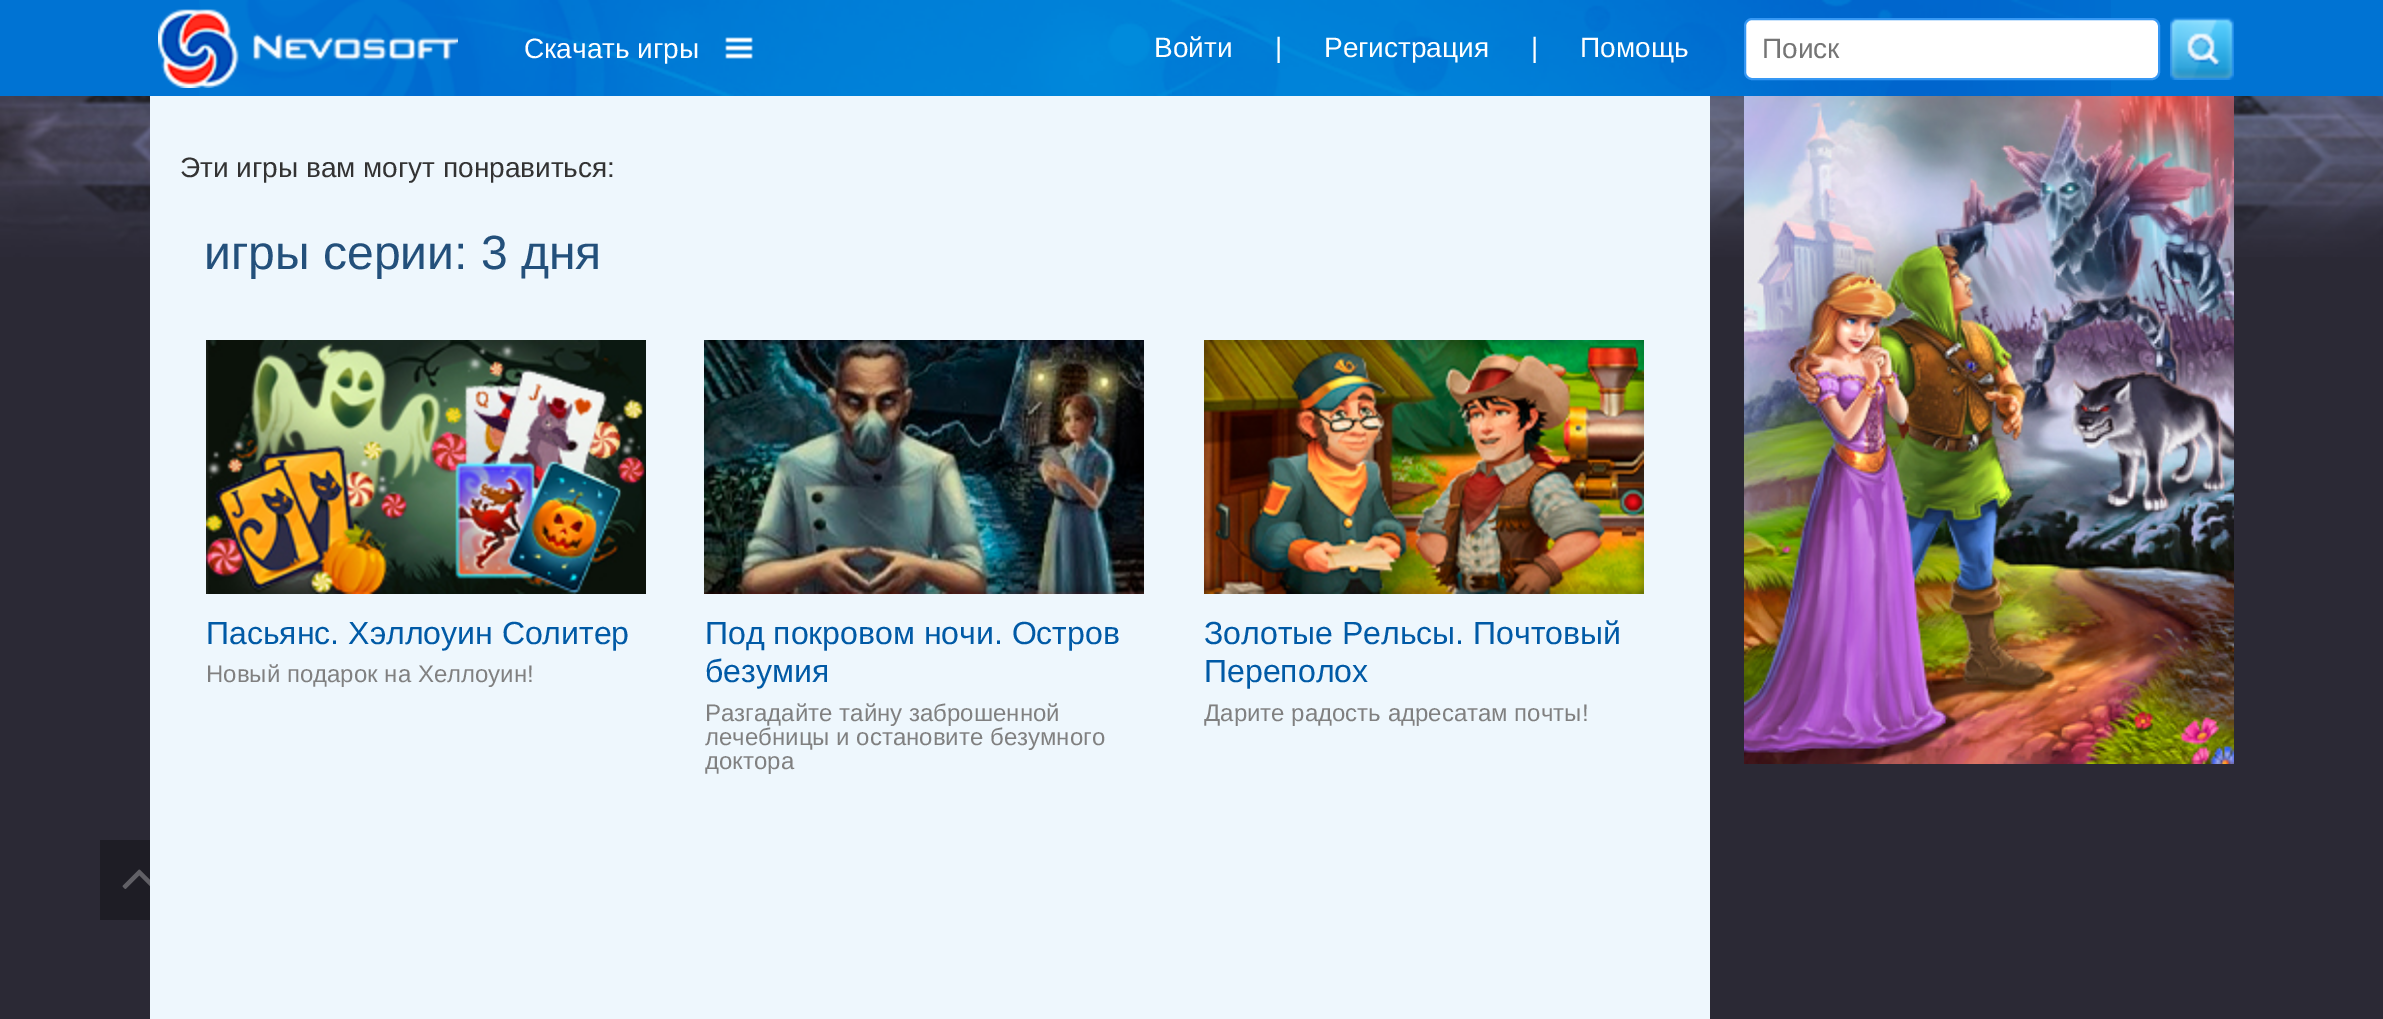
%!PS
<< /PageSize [2383 1019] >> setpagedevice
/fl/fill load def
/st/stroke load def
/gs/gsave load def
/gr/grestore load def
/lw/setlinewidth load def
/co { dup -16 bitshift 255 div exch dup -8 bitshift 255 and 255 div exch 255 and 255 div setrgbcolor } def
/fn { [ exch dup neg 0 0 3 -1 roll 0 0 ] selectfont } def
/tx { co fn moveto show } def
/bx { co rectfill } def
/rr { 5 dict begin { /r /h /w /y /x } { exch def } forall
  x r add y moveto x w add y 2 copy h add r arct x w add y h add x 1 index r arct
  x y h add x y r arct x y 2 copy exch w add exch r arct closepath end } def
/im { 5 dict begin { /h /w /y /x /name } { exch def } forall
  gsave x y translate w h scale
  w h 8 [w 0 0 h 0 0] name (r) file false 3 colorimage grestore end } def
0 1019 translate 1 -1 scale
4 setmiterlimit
0 0 2383 1019 16#2B2935 bx
0 0 2383 96 16#0073D3 bx
(media/1.raw) 199 0 1912 96 im
(media/2.raw) 158 9 300 79 im
(media/3.raw) 725 37 28 22 im
16#FFFFFF co
1745 19 414 60 7 rr gs fl gr
16#3698F4 co
2 lw
st
(media/4.raw) 2170 17 64 63 im
(media/5.raw) 0 96 2383 161 im
150 96 1560 923 16#EEF7FD bx
(media/6.raw) 206 340 440 254 im
(media/7.raw) 704 340 440 254 im
(media/8.raw) 1204 340 440 254 im
(media/9.raw) 1744 96 490 668 im
100 840 50 80 16#1E1D25 bx
(media/10.raw) 122 869 28 20 im
(Скачать игры) 524 58 /LiberationSans-Regular 28 16#FFFFFF tx
(Войти) 1154 57 /LiberationSans-Regular 28 16#FFFFFF tx
(|) 1275 57 /LiberationSans-Regular 28 16#FFFFFF tx
(Регистрация) 1324 57 /LiberationSans-Regular 28 16#FFFFFF tx
(|) 1531 57 /LiberationSans-Regular 28 16#FFFFFF tx
(Помощь) 1580 57 /LiberationSans-Regular 28 16#FFFFFF tx
(Поиск) 1762 58 /LiberationSans-Regular 28 16#757575 tx
(Эти игры вам могут понравиться:) 180 177 /LiberationSans-Regular 28 16#333333 tx
(игры серии: 3 дня) 204 269 /LiberationSans-Regular 48 16#23507B tx
(Пасьянс. Хэллоуин Солитер) 206 644 /LiberationSans-Regular 32 16#005AA6 tx
(Новый подарок на Хеллоуин!) 206 682 /LiberationSans-Regular 24 16#808080 tx
(Под покровом ночи. Остров) 705 644 /LiberationSans-Regular 32 16#005AA6 tx
(безумия) 705 682 /LiberationSans-Regular 32 16#005AA6 tx
(Разгадайте тайну заброшенной) 705 721 /LiberationSans-Regular 24 16#808080 tx
(лечебницы и остановите безумного) 705 745 /LiberationSans-Regular 24 16#808080 tx
(доктора) 705 769 /LiberationSans-Regular 24 16#808080 tx
(Золотые Рельсы. Почтовый) 1204 644 /LiberationSans-Regular 32 16#005AA6 tx
(Переполох) 1204 682 /LiberationSans-Regular 32 16#005AA6 tx
(Дарите радость адресатам почты!) 1204 721 /LiberationSans-Regular 24 16#808080 tx
showpage
